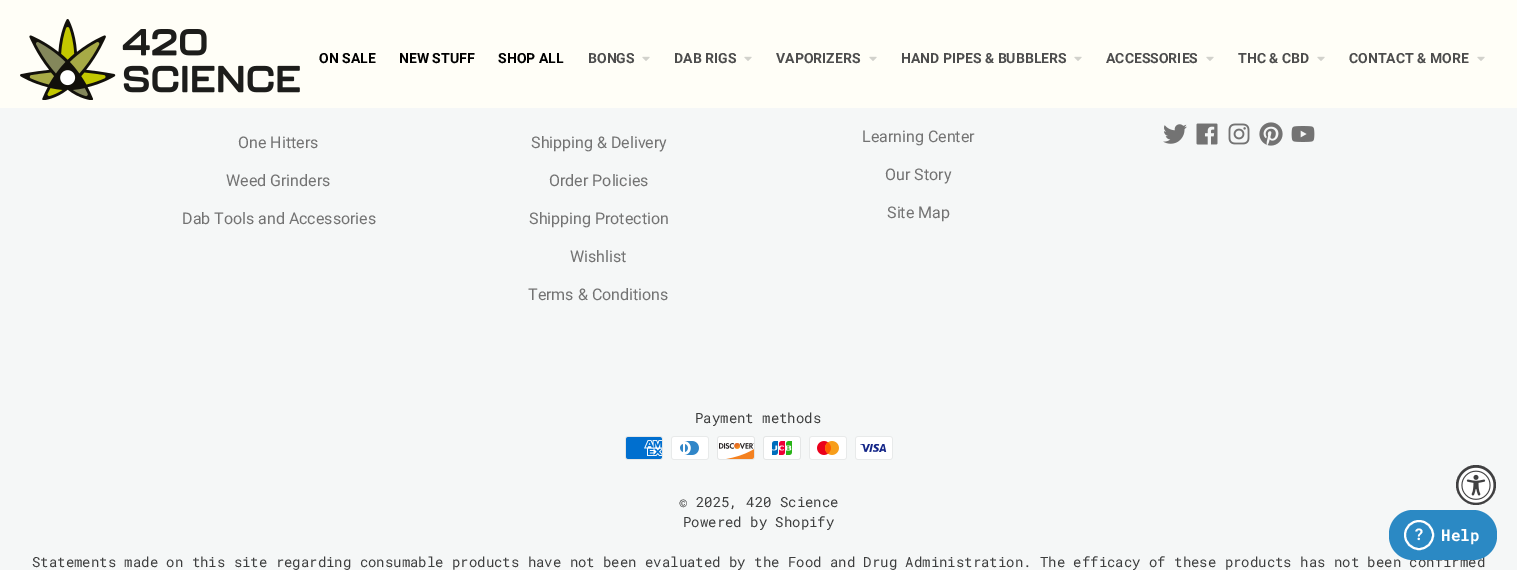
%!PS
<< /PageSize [1517 570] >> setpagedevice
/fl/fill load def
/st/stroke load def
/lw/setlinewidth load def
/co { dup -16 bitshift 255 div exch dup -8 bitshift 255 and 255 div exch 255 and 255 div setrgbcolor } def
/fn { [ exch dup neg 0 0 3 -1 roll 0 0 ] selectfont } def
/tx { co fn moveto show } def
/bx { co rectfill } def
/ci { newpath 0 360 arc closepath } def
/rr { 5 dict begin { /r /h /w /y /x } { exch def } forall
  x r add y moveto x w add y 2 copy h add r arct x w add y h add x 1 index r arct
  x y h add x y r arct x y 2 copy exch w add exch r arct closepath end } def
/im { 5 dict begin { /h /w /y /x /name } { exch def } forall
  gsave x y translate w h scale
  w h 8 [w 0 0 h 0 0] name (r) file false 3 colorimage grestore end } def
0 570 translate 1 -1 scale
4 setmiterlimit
0 0 1517 570 16#F5F7F7 bx
0 0 1517 108 16#FFFEF7 bx
(media/1.raw) 20 19 280 81 im
(media/2.raw) 642 56 8 5 im
(media/2.raw) 744 56 8 5 im
(media/2.raw) 869 56 8 5 im
(media/2.raw) 1074 56 8 5 im
(media/2.raw) 1206 56 8 5 im
(media/2.raw) 1317 56 8 5 im
(media/2.raw) 1477 56 8 5 im
(media/3.raw) 1163 124 24 20 im
(media/4.raw) 1196 123 22 22 im
(media/5.raw) 1228 123 22 22 im
(media/6.raw) 1259 122 24 24 im
(media/7.raw) 1291 126 24 16 im
(media/8.raw) 625 436 38 24 im
(media/9.raw) 671 436 38 24 im
(media/10.raw) 717 436 38 24 im
(media/11.raw) 763 436 38 24 im
(media/12.raw) 809 436 38 24 im
(media/13.raw) 855 436 38 24 im
16#404041 co
1476 485 20 ci fl
(media/14.raw) 1458 467 36 36 im
(ON SALE) 319 63 /Roboto-Bold 14 16#000000 tx
(NEW STUFF) 399 63 /Roboto-Bold 14 16#000000 tx
(SHOP ALL) 498 63 /Roboto-Bold 14 16#000000 tx
(BONGS) 588 63 /Roboto-Bold 14 16#4D4D4D tx
(DAB RIGS) 674 63 /Roboto-Bold 14 16#4D4D4D tx
(VAPORIZERS) 776 63 /Roboto-Bold 14 16#4D4D4D tx
(HAND PIPES & BUBBLERS) 901 63 /Roboto-Bold 14 16#4D4D4D tx
(ACCESSORIES) 1106 63 /Roboto-Bold 14 16#4D4D4D tx
(THC & CBD) 1238 63 /Roboto-Bold 14 16#4D4D4D tx
(CONTACT & MORE) 1349 63 /Roboto-Bold 14 16#4D4D4D tx
(One Hitters) 238 148 /Roboto-Regular 16 16#737373 tx
(Weed Grinders) 226 186 /Roboto-Regular 16 16#737373 tx
(Dab Tools and Accessories) 182 224 /Roboto-Regular 16 16#737373 tx
(Shipping & Delivery) 531 148 /Roboto-Regular 16 16#737373 tx
(Order Policies) 549 186 /Roboto-Regular 16 16#737373 tx
(Shipping Protection) 529 224 /Roboto-Regular 16 16#737373 tx
(Wishlist) 570 262 /Roboto-Regular 16 16#737373 tx
(Terms & Conditions) 528 300 /Roboto-Regular 16 16#737373 tx
(Learning Center) 862 142 /Roboto-Regular 16 16#737373 tx
(Our Story) 885 180 /Roboto-Regular 16 16#737373 tx
(Site Map) 887 218 /Roboto-Regular 16 16#737373 tx
(Payment methods) 695 423 /RobotoMono-Regular 14 16#3D3E3E tx
(© 2025, 420 Science) 679 507 /RobotoMono-Regular 14 16#3D3E3E tx
(Powered by Shopify) 683 527 /RobotoMono-Regular 14 16#3D3E3E tx
(Statements made on this site regarding consumable products have not been evaluated by the Food and Drug Administration. The efficacy of these products has not been confirmed) 32 567 /RobotoMono-Regular 14 16#3D3E3E tx
16#2B89C4 co
1389 510 108 50 24 rr fl
16#FFFFFF co
2 lw
1419 535 14 ci st
(?) 1414 540 /RobotoMono-Bold 16 16#FFFFFF tx
(Help) 1441 541 /RobotoMono-Bold 16 16#FFFFFF tx
showpage
